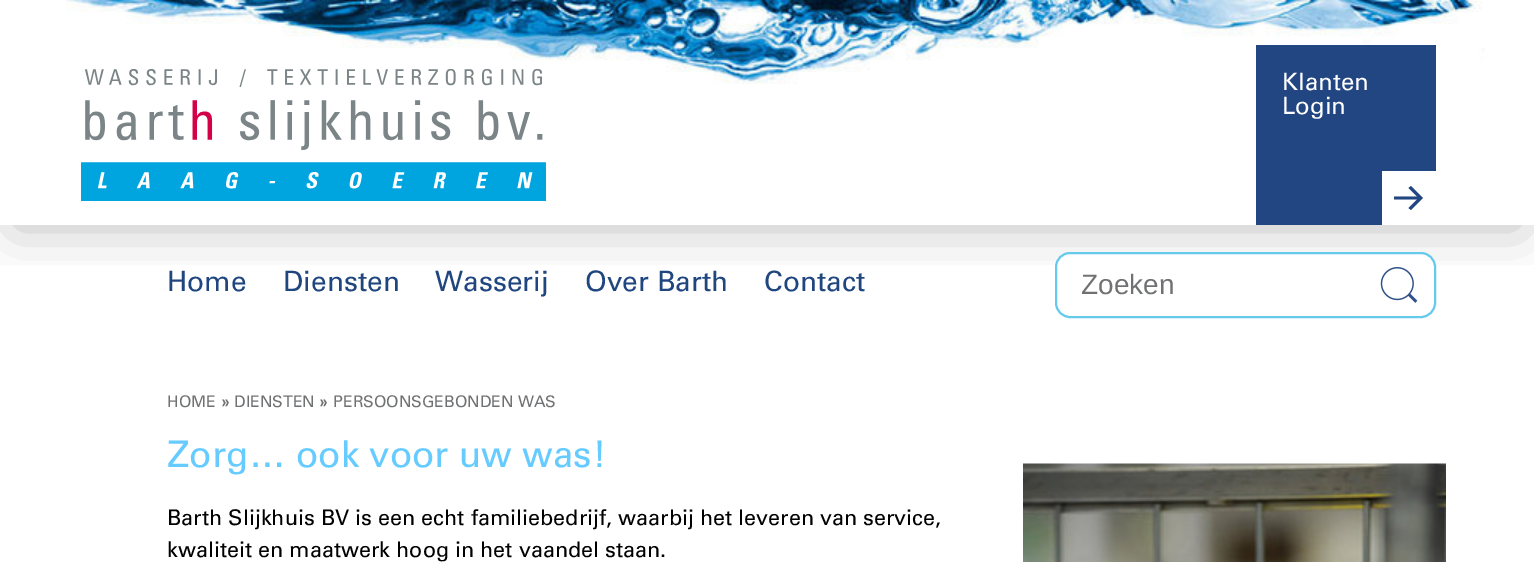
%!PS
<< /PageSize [1534 562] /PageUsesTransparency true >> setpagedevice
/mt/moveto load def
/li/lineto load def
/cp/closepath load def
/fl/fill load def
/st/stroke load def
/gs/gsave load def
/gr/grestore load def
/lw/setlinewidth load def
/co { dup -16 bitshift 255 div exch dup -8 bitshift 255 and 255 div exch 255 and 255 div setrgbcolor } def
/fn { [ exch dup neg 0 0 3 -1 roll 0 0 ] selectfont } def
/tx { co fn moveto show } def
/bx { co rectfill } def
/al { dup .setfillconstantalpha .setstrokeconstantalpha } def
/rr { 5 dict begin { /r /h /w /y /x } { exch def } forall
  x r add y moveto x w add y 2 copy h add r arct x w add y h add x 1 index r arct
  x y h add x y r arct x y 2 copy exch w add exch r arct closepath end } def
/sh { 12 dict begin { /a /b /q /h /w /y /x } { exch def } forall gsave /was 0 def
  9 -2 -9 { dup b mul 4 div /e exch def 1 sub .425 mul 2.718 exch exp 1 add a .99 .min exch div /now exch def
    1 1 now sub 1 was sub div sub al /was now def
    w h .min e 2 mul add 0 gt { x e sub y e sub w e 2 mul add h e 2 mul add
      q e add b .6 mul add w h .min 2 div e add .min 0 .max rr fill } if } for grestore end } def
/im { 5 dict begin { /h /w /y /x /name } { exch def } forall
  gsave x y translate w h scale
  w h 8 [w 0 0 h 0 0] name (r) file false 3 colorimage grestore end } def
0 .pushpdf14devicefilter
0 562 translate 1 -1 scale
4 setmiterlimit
0 0 1534 562 16#FFFFFF bx
gs
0 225 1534 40 rectclip
16#000000 co
14 29 1507 198 0 27 .25 sh
gr
(media/1.raw) 66 0 1419 84 im
(media/2.raw) 81 69 465 132 im
1256 45 180 180 16#224682 bx
1382 171 54 54 16#FFFFFF bx
16#224681 co
1394 196.5 mt 1417 196.5 li 1408.5 188 li 1411 186 li 1423 198 li 1411 210 li 1408.5 208 li 1417 199.5 li 1394 199.5 li cp fl
16#FFFFFF co
1056 253 379 64 14 rr gs fl gr
16#66CAEC co
2 lw
st
(media/3.raw) 1380 267 38 36 im
(media/4.raw) 1023 463 423 99 im
(Home) 167 291 /Univers-Regular 28 16#1F467F tx
(Diensten) 283 291 /Univers-Regular 28 16#1F467F tx
(Wasserij) 435 291 /Univers-Regular 28 16#1F467F tx
(Over Barth) 585 291 /Univers-Regular 28 16#1F467F tx
(Contact) 764 291 /Univers-Regular 28 16#1F467F tx
(Klanten) 1282 90 /Univers-Regular 24 16#FFFFFF tx
(Login) 1282 114 /Univers-Regular 24 16#FFFFFF tx
gs
1082 269 292 33 rectclip
(Zoeken) 1081 294 /LiberationSans-Regular 28 16#707173 tx
gr
(HOME) 167 407 /Univers-Regular 16 16#707173 tx
(») 221 407 /Univers-Bold 16 16#707173 tx
(DIENSTEN) 234 407 /Univers-Regular 16 16#707173 tx
(») 319 407 /Univers-Bold 16 16#707173 tx
(PERSOONSGEBONDEN WAS) 333 407 /Univers-Regular 16 16#707173 tx
(Zorg… ook voor uw was!) 167 467 /Univers-Regular 36.75 16#66CBFF tx
(Barth Slijkhuis BV is een echt familiebedrijf, waarbij het leveren van service,) 167 525 /Univers-Regular 21.6 16#000000 tx
(kwaliteit en maatwerk hoog in het vaandel staan.) 167 557 /Univers-Regular 21.6 16#000000 tx
.poppdf14devicefilter showpage
